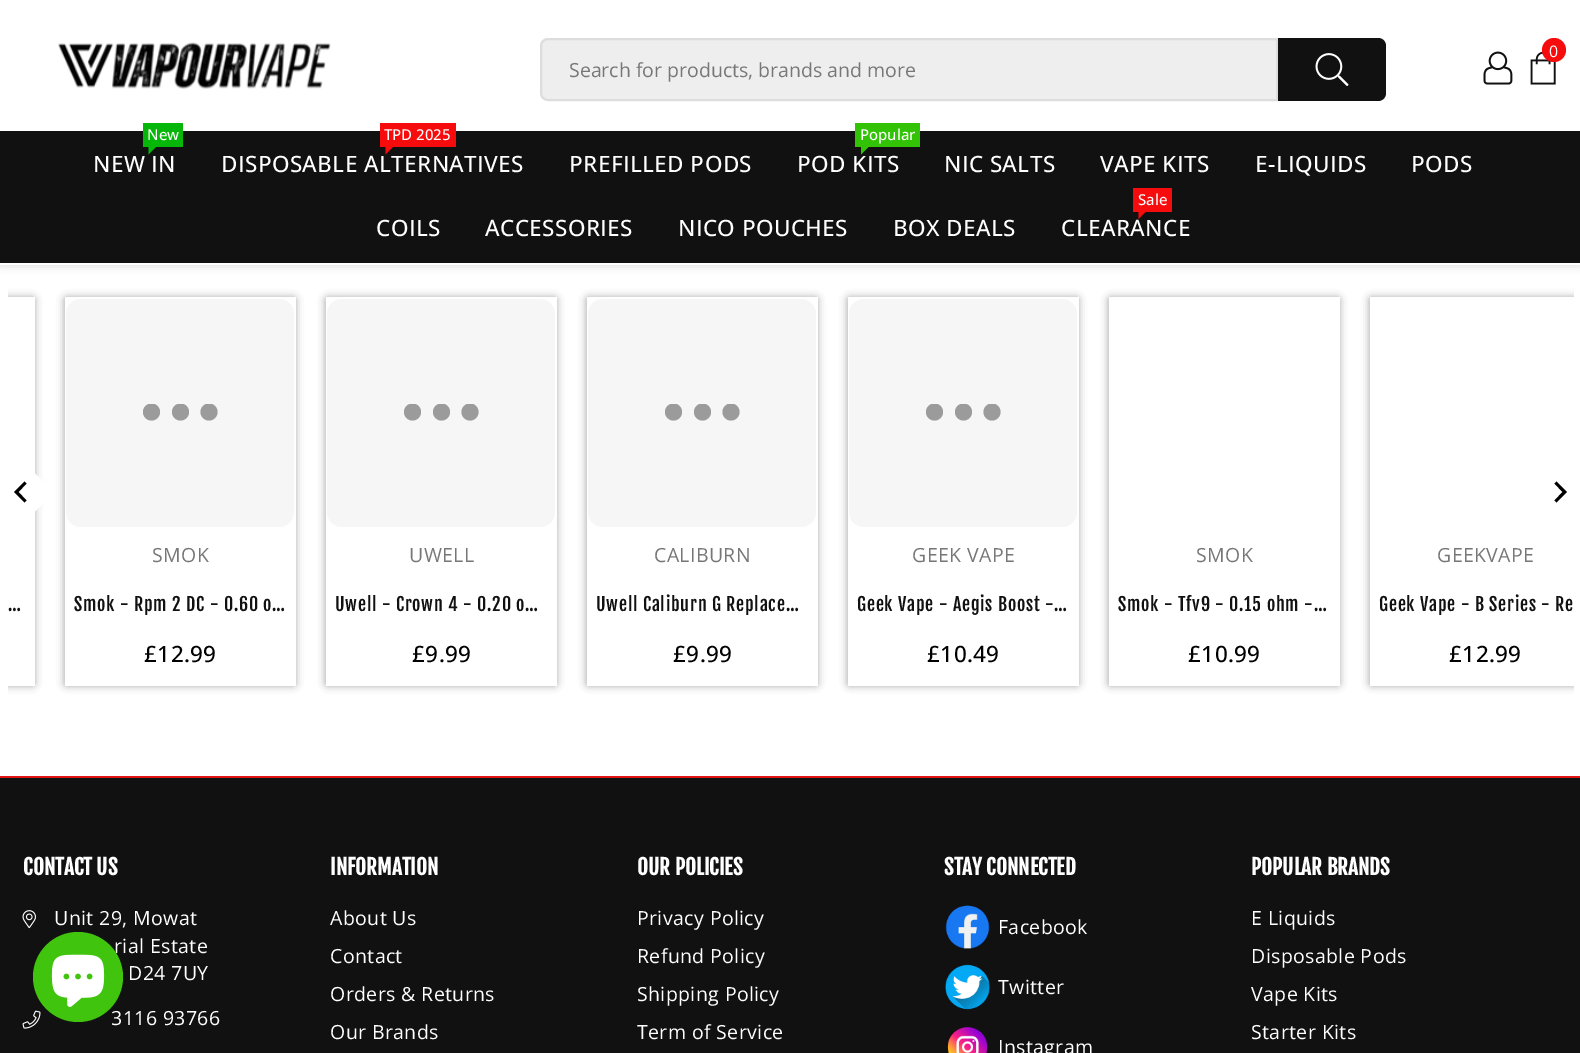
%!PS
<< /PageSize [1580 1053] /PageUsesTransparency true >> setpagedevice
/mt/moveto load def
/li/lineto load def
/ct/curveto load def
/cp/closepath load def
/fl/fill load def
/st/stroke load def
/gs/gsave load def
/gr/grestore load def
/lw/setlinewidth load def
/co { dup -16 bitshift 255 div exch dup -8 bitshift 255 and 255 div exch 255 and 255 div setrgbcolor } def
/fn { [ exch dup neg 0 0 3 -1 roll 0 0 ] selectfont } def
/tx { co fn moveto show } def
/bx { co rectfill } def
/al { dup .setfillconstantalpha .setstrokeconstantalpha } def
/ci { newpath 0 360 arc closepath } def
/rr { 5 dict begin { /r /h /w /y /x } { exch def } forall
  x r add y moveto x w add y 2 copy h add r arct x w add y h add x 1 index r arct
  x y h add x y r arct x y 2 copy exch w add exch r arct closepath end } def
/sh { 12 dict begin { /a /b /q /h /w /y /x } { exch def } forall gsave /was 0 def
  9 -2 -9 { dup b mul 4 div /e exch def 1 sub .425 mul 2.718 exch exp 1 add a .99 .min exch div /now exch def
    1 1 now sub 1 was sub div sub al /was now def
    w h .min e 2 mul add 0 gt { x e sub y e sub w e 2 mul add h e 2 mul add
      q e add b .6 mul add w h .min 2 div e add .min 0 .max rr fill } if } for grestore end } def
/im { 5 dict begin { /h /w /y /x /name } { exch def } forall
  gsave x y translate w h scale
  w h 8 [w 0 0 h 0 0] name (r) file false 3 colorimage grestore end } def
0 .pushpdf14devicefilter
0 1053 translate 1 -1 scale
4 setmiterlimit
0 0 1580 1053 16#FFFFFF bx
16#000000 co
0 0 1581 264 0 5 .2 sh
0 0 1580 131 16#FFFFFF bx
0 263 1580 2 16#FFFFFF bx
(media/1.raw) 58 42 273 47 im
(media/2.raw) 1483 51 30 34 im
(media/3.raw) 1530 51 26 34 im
16#F60C0C co
1554 50 12 ci fl
16#EEEEEE co
548 39 mt 1277 39 li 1277 100 li 548 100 li 544 100 541 97 541 93 ct 541 46 li 541 42 544 39 548 39 ct cp gs fl gr
16#DDDDDD co
2 lw
st
16#111111 co
1278 38 mt 1378 38 li 1382.5 38 1386 41.5 1386 46 ct 1386 93 li 1386 97.5 1382.5 101 1378 101 ct 1278 101 li cp fl
(media/4.raw) 1315 53 34 33 im
0 131 1580 132 16#111111 bx
143 123 40 24 16#06B608 bx
380 123 76 24 16#F60C0C bx
855 123 65 24 16#32C206 bx
1133 188 39 24 16#F60C0C bx
gs
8 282 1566 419 rectclip
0 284 mt 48 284 li 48 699 li 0 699 li cp -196 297 mt 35 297 li 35 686 li -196 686 li cp eoclip newpath
16#000000 co
-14 299 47 385 0 4.5 .5 sh
gr
16#FFFFFF co
22.5 492.5 22.5 ci fl
16#000000 co
14 492 mt 24.5 502.5 li 26.5 500.5 li 18.5 492 li 26.5 483.5 li 24.5 481.5 li cp fl
gs
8 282 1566 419 rectclip
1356 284 mt 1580 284 li 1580 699 li 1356 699 li cp 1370 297 mt 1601 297 li 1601 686 li 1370 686 li cp eoclip newpath
1371 299 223 385 0 4.5 .5 sh
gr
1567 492 mt 1556.5 481.5 li 1554.5 483.5 li 1562.5 492 li 1554.5 500.5 li 1556.5 502.5 li cp fl
gs
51 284 mt 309 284 li 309 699 li 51 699 li cp 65 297 mt 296 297 li 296 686 li 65 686 li cp eoclip newpath
66 299 228 385 0 4.5 .5 sh
gr
16#F6F6F6 co
66 299 228 228 15 rr fl
gs
143 404 75 18 rectclip
16#9B9B9B co
151.5 412 8.5 ci fl
180.5 412 8.5 ci fl
209 412 8.5 ci fl
gr
gs
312 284 mt 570 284 li 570 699 li 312 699 li cp 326 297 mt 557 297 li 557 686 li 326 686 li cp eoclip newpath
16#000000 co
327 299 228 385 0 4.5 .5 sh
gr
327 299 228 228 15 rr fl
gs
404 404 75 18 rectclip
16#9B9B9B co
412.5 412 8.5 ci fl
441.5 412 8.5 ci fl
470 412 8.5 ci fl
gr
gs
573 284 mt 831 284 li 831 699 li 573 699 li cp 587 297 mt 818 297 li 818 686 li 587 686 li cp eoclip newpath
16#000000 co
588 299 228 385 0 4.5 .5 sh
gr
588 299 228 228 15 rr fl
gs
665 404 75 18 rectclip
16#9B9B9B co
673.5 412 8.5 ci fl
702.5 412 8.5 ci fl
731 412 8.5 ci fl
gr
gs
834 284 mt 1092 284 li 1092 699 li 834 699 li cp 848 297 mt 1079 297 li 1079 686 li 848 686 li cp eoclip newpath
16#000000 co
849 299 228 385 0 4.5 .5 sh
gr
849 299 228 228 15 rr fl
gs
926 404 75 18 rectclip
16#9B9B9B co
934.5 412 8.5 ci fl
963.5 412 8.5 ci fl
992 412 8.5 ci fl
gr
gs
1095 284 mt 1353 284 li 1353 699 li 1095 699 li cp 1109 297 mt 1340 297 li 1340 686 li 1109 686 li cp eoclip newpath
16#000000 co
1110 299 228 385 0 4.5 .5 sh
gr
0 778 1580 275 16#111111 bx
0 776 1580 2 16#E21313 bx
(media/5.raw) 22 910 14 19 im
(media/6.raw) 22 1010 19 19 im
(media/7.raw) 945 905 45 44 im
(media/8.raw) 945 964 45 46 im
(media/9.raw) 947 1026 41 27 im
/OpenSans-Regular 16 fn
16#FFFFFF co
1549 57 mt .4 0 (0) ashow
(Search for products, brands and more) 569 77 /OpenSans-Regular 19.5 16#777777 tx
(New) 147 140 /OpenSans-Medium 15 16#FFFFFF tx
16#06B608 co
148.5 154.5 mt 148.5 139.5 li 156 147 li cp fl
/OpenSans-Medium 22.5 fn
16#FFFFFF co
93 172 mt .4 0 (NEW IN) ashow
(TPD 2025) 384 140 /OpenSans-Medium 15 16#FFFFFF tx
16#F60C0C co
385.5 154.5 mt 385.5 139.5 li 393 147 li cp fl
/OpenSans-Medium 22.5 fn
16#FFFFFF co
221 172 mt .4 0 (DISPOSABLE ALTERNATIVES) ashow
569 172 mt .4 0 (PREFILLED PODS) ashow
(Popular) 860 140 /OpenSans-Medium 15 16#FFFFFF tx
16#32C206 co
861 154.5 mt 861 139.5 li 868.5 147 li cp fl
/OpenSans-Medium 22.5 fn
16#FFFFFF co
797 172 mt .4 0 (POD KITS) ashow
944 172 mt .4 0 (NIC SALTS) ashow
1100 172 mt .4 0 (VAPE KITS) ashow
1255 172 mt .4 0 (E-LIQUIDS) ashow
1411 172 mt .4 0 (PODS) ashow
376 236 mt .4 0 (COILS) ashow
485 236 mt .4 0 (ACCESSORIES) ashow
678 236 mt .4 0 (NICO POUCHES) ashow
893 236 mt .4 0 (BOX DEALS) ashow
(Sale) 1138 205 /OpenSans-Medium 15 16#FFFFFF tx
16#F60C0C co
1138.5 219 mt 1138.5 204 li 1146 211.5 li cp fl
/OpenSans-Medium 22.5 fn
16#FFFFFF co
1061 236 mt .4 0 (CLEARANCE) ashow
/FjallaOne-Regular 18 fn
16#111111 co
8 611 mt .75 0 (…) ashow
/OpenSans-Regular 19.5 fn
16#777777 co
152 562 mt .4 0 (SMOK) ashow
/FjallaOne-Regular 18 fn
16#111111 co
74 611 mt .75 0 (Smok - Rpm 2 DC - 0.60 o…) ashow
/OpenSans-Medium 22.5 fn
16#000000 co
144 662 mt .4 0 (£12.99) ashow
/OpenSans-Regular 19.5 fn
16#777777 co
409 562 mt .4 0 (UWELL) ashow
/FjallaOne-Regular 18 fn
16#111111 co
335 611 mt .75 0 (Uwell - Crown 4 - 0.20 o…) ashow
/OpenSans-Medium 22.5 fn
16#000000 co
412 662 mt .4 0 (£9.99) ashow
/OpenSans-Regular 19.5 fn
16#777777 co
654 562 mt .4 0 (CALIBURN) ashow
/FjallaOne-Regular 18 fn
16#111111 co
596 611 mt .75 0 (Uwell Caliburn G Replace…) ashow
/OpenSans-Medium 22.5 fn
16#000000 co
673 662 mt .4 0 (£9.99) ashow
/OpenSans-Regular 19.5 fn
16#777777 co
912 562 mt .4 0 (GEEK VAPE) ashow
/FjallaOne-Regular 18 fn
16#111111 co
857 611 mt .75 0 (Geek Vape - Aegis Boost -…) ashow
/OpenSans-Medium 22.5 fn
16#000000 co
927 662 mt .4 0 (£10.49) ashow
/OpenSans-Regular 19.5 fn
16#777777 co
1196 562 mt .4 0 (SMOK) ashow
/FjallaOne-Regular 18 fn
16#111111 co
1118 611 mt .75 0 (Smok - Tfv9 - 0.15 ohm -…) ashow
/OpenSans-Medium 22.5 fn
16#000000 co
1188 662 mt .4 0 (£10.99) ashow
/OpenSans-Regular 19.5 fn
16#777777 co
1437 562 mt .4 0 (GEEKVAPE) ashow
/FjallaOne-Regular 18 fn
16#111111 co
1379 611 mt .75 0 (Geek Vape - B Series - Re) ashow
/OpenSans-Medium 22.5 fn
16#000000 co
1449 662 mt .4 0 (£12.99) ashow
(CONTACT US) 23 875 /FjallaOne-Bold 21 16#FFFFFF tx
/OpenSans-Regular 19.5 fn
54 925 mt .4 0 (Unit 29, Mowat) ashow
114 953 mt .4 0 (rial Estate) ashow
128 980 mt .4 0 (D24 7UY) ashow
111 1025 mt .4 0 (3116 93766) ashow
(INFORMATION) 330 875 /FjallaOne-Bold 21 16#FFFFFF tx
/OpenSans-Regular 19.5 fn
330 925 mt .4 0 (About Us) ashow
330 963 mt .4 0 (Contact) ashow
330 1001 mt .4 0 (Orders & Returns) ashow
330 1039 mt .4 0 (Our Brands) ashow
(OUR POLICIES) 637 875 /FjallaOne-Bold 21 16#FFFFFF tx
/OpenSans-Regular 19.5 fn
637 925 mt .4 0 (Privacy Policy) ashow
637 963 mt .4 0 (Refund Policy) ashow
637 1001 mt .4 0 (Shipping Policy) ashow
637 1039 mt .4 0 (Term of Service) ashow
(STAY CONNECTED) 944 875 /FjallaOne-Bold 21 16#FFFFFF tx
/OpenSans-Regular 19.5 fn
998 934 mt .4 0 (Facebook) ashow
998 994 mt .4 0 (Twitter) ashow
998 1054 mt .4 0 (Instagram) ashow
(POPULAR BRANDS) 1251 875 /FjallaOne-Bold 21 16#FFFFFF tx
/OpenSans-Regular 19.5 fn
1251 925 mt .4 0 (E Liquids) ashow
1251 963 mt .4 0 (Disposable Pods) ashow
1251 1001 mt .4 0 (Vape Kits) ashow
1251 1039 mt .4 0 (Starter Kits) ashow
16#41C40D co
78 977 45 ci fl
(media/10.raw) 51 954 54 53 im
.poppdf14devicefilter showpage
